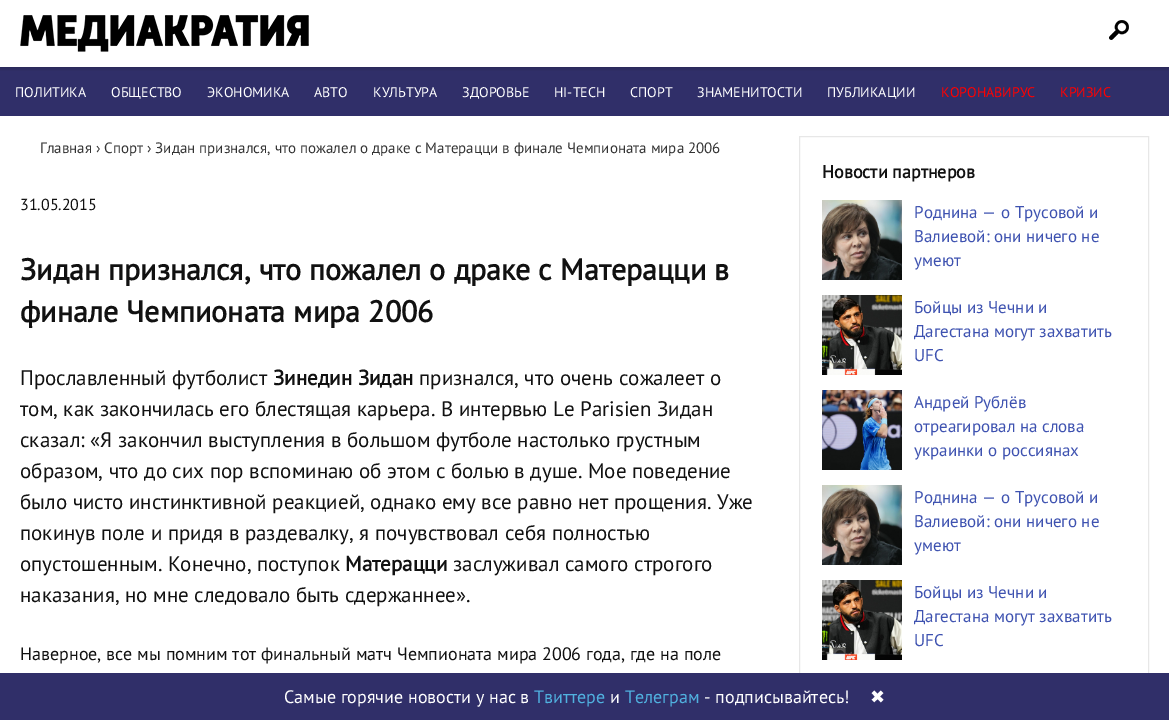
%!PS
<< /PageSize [1169 720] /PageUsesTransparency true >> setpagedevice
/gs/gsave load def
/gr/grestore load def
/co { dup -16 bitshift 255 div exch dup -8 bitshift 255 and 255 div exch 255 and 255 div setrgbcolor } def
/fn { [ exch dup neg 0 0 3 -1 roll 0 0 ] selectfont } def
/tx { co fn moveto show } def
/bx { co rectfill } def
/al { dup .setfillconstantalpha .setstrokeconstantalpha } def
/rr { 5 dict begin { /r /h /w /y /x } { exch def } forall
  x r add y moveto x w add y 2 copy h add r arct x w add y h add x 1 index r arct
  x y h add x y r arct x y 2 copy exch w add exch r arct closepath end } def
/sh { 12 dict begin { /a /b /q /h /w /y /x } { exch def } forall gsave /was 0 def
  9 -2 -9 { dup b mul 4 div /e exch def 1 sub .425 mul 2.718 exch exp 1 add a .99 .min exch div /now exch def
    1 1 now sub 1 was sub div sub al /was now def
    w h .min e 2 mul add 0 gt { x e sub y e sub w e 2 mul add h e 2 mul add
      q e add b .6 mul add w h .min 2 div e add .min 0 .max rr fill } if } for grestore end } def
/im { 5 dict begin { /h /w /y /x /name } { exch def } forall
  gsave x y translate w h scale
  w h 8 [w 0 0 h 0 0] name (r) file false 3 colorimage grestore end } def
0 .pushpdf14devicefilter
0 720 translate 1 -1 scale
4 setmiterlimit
0 0 1169 720 16#FFFFFF bx
0 67 1169 49 16#302F69 bx
gs
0 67 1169 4 rectclip
16#000000 co
0 1 1169 67 0 2.5 .2 sh
gr
(media/1.raw) 20 15 289 37 im
(media/2.raw) 1109 20 20 20 im
16#E7E7E7 co
799.5 136.5 349 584 rectstroke
(media/3.raw) 822 200 80 80 im
(media/4.raw) 822 295 80 80 im
(media/5.raw) 822 390 80 80 im
(media/3.raw) 822 485 80 80 im
(media/4.raw) 822 580 80 80 im
0 673 1169 47 16#302F69 bx
(ПОЛИТИКА) 15 97 /PTSans-Regular 14 16#FFFFFF tx
(ОБЩЕСТВО) 111 97 /PTSans-Regular 14 16#FFFFFF tx
(ЭКОНОМИКА) 207 97 /PTSans-Regular 14 16#FFFFFF tx
(АВТО) 314 97 /PTSans-Regular 14 16#FFFFFF tx
(КУЛЬТУРА) 373 97 /PTSans-Regular 14 16#FFFFFF tx
(ЗДОРОВЬЕ) 462 97 /PTSans-Regular 14 16#FFFFFF tx
(HI-TECH) 554 97 /PTSans-Regular 14 16#FFFFFF tx
(СПОРТ) 630 97 /PTSans-Regular 14 16#FFFFFF tx
(ЗНАМЕНИТОСТИ) 697 97 /PTSans-Regular 14 16#FFFFFF tx
(ПУБЛИКАЦИИ) 827 97 /PTSans-Regular 14 16#FFFFFF tx
(КОРОНАВИРУС) 941 97 /PTSans-Regular 14 16#FF0000 tx
(КРИЗИС) 1060 97 /PTSans-Regular 14 16#FF0000 tx
(Главная › Спорт › Зидан признался, что пожалел о драке с Матерацци в финале Чемпионата мира 2006) 40 153 /PTSans-Regular 15 16#333333 tx
(31.05.2015) 20 210 /PTSans-Regular 16 16#111111 tx
(Зидан признался, что пожалел о драке с Матерацци в) 20 280 /PTSans-Bold 30 16#111111 tx
(финале Чемпионата мира 2006) 20 322 /PTSans-Bold 30 16#111111 tx
(Прославленный футболист) 20 385 /PTSans-Regular 21 16#111111 tx
(Зинедин Зидан) 273 385 /PTSans-Bold 21 16#111111 tx
(признался, что очень сожалеет о) 419 385 /PTSans-Regular 21 16#111111 tx
(том, как закончилась его блестящая карьера. В интервью Le Parisien Зидан) 20 416 /PTSans-Regular 21 16#111111 tx
(сказал: «Я закончил выступления в большом футболе настолько грустным) 20 447 /PTSans-Regular 21 16#111111 tx
(образом, что до сих пор вспоминаю об этом с болью в душе. Мое поведение) 20 478 /PTSans-Regular 21 16#111111 tx
(было чисто инстинктивной реакцией, однако ему все равно нет прощения. Уже) 20 509 /PTSans-Regular 21 16#111111 tx
(покинув поле и придя в раздевалку, я почувствовал себя полностью) 20 540 /PTSans-Regular 21 16#111111 tx
(опустошенным. Конечно, поступок) 20 571 /PTSans-Regular 21 16#111111 tx
(Матерацци) 345 571 /PTSans-Bold 21 16#111111 tx
(заслуживал самого строгого) 453 571 /PTSans-Regular 21 16#111111 tx
(наказания, но мне следовало быть сдержаннее».) 20 602 /PTSans-Regular 21 16#111111 tx
(Наверное, все мы помним тот финальный матч Чемпионата мира 2006 года, где на поле) 20 660 /PTSans-Regular 18 16#111111 tx
(Новости партнеров) 822 178 /PTSans-Bold 18 16#111111 tx
(Роднина — о Трусовой и) 914 218 /PTSans-Regular 17 16#3E52B0 tx
(Валиевой: они ничего не) 914 242 /PTSans-Regular 17 16#3E52B0 tx
(умеют) 914 266 /PTSans-Regular 17 16#3E52B0 tx
(Бойцы из Чечни и) 914 313 /PTSans-Regular 17 16#3E52B0 tx
(Дагестана могут захватить) 914 337 /PTSans-Regular 17 16#3E52B0 tx
(UFC) 914 361 /PTSans-Regular 17 16#3E52B0 tx
(Андрей Рублёв) 914 408 /PTSans-Regular 17 16#3E52B0 tx
(отреагировал на слова) 914 432 /PTSans-Regular 17 16#3E52B0 tx
(украинки о россиянах) 914 456 /PTSans-Regular 17 16#3E52B0 tx
(Роднина — о Трусовой и) 914 503 /PTSans-Regular 17 16#3E52B0 tx
(Валиевой: они ничего не) 914 527 /PTSans-Regular 17 16#3E52B0 tx
(умеют) 914 551 /PTSans-Regular 17 16#3E52B0 tx
(Бойцы из Чечни и) 914 598 /PTSans-Regular 17 16#3E52B0 tx
(Дагестана могут захватить) 914 622 /PTSans-Regular 17 16#3E52B0 tx
(UFC) 914 646 /PTSans-Regular 17 16#3E52B0 tx
(Самые горячие новости у нас в) 284 703 /PTSans-Regular 18 16#FFFFFF tx
(Твиттере) 534 703 /PTSans-Regular 18 16#50B1DF tx
(и) 610 703 /PTSans-Regular 18 16#FFFFFF tx
(Телеграм) 625 703 /PTSans-Regular 18 16#50B1DF tx
(- подписывайтесь!) 704 703 /PTSans-Regular 18 16#FFFFFF tx
(✖) 870 703 /DejaVuSans-Regular 18 16#FFFFFF tx
.poppdf14devicefilter showpage
